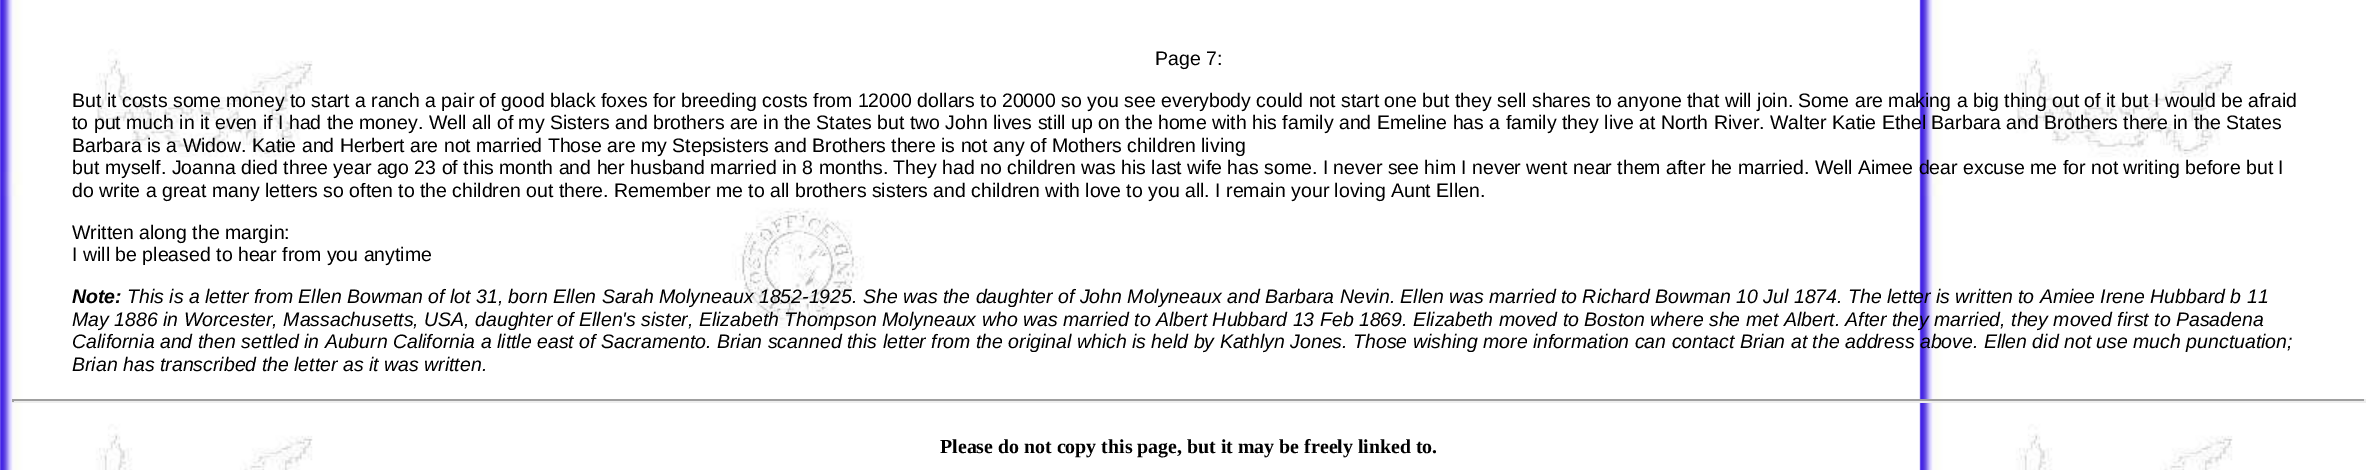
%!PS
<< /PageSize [2377 470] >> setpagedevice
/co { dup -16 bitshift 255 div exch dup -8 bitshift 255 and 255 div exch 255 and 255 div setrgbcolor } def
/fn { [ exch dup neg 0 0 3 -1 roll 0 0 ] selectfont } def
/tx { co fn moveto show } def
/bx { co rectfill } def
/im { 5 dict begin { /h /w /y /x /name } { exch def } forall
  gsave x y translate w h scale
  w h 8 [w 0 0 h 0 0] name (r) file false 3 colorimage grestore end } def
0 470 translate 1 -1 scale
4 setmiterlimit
0 0 2377 470 16#FFFFFF bx
(media/1.raw) 0 0 2233 470 im
12 399 2354 2 16#9F9F9F bx
2364 399 2 3 16#EEEEEE bx
12 401 2354 2 16#EEEEEE bx
12 399 2 3 16#9F9F9F bx
(Page 7:) 1155 65 /LiberationSans-Regular 19.5 16#000000 tx
(But it costs some money to start a ranch a pair of good black foxes for breeding costs from 12000 dollars to 20000 so you see everybody could not start one but they sell shares to anyone that will join. Some are making a big thing out of it but I would be afraid) 72 107 /LiberationSans-Regular 19.5 16#000000 tx
(to put much in it even if I had the money. Well all of my Sisters and brothers are in the States but two John lives still up on the home with his family and Emeline has a family they live at North River. Walter Katie Ethel Barbara and Brothers there in the States) 72 129 /LiberationSans-Regular 19.5 16#000000 tx
(Barbara is a Widow. Katie and Herbert are not married Those are my Stepsisters and Brothers there is not any of Mothers children living) 72 152 /LiberationSans-Regular 19.5 16#000000 tx
(but myself. Joanna died three year ago 23 of this month and her husband married in 8 months. They had no children was his last wife has some. I never see him I never went near them after he married. Well Aimee dear excuse me for not writing before but I) 72 174 /LiberationSans-Regular 19.5 16#000000 tx
(do write a great many letters so often to the children out there. Remember me to all brothers sisters and children with love to you all. I remain your loving Aunt Ellen.) 72 197 /LiberationSans-Regular 19.5 16#000000 tx
(Written along the margin:) 72 239 /LiberationSans-Regular 19.5 16#000000 tx
(I will be pleased to hear from you anytime) 72 261 /LiberationSans-Regular 19.5 16#000000 tx
(Note:) 72 303 /LiberationSans-BoldItalic 19.5 16#000000 tx
(This is a letter from Ellen Bowman of lot 31, born Ellen Sarah Molyneaux 1852-1925. She was the daughter of John Molyneaux and Barbara Nevin. Ellen was married to Richard Bowman 10 Jul 1874. The letter is written to Amiee Irene Hubbard b 11) 127 303 /LiberationSans-Italic 19.5 16#000000 tx
(May 1886 in Worcester, Massachusetts, USA, daughter of Ellen's sister, Elizabeth Thompson Molyneaux who was married to Albert Hubbard 13 Feb 1869. Elizabeth moved to Boston where she met Albert. After they married, they moved first to Pasadena) 72 326 /LiberationSans-Italic 19.5 16#000000 tx
(California and then settled in Auburn California a little east of Sacramento. Brian scanned this letter from the original which is held by Kathlyn Jones. Those wishing more information can contact Brian at the address above. Ellen did not use much punctuation;) 72 348 /LiberationSans-Italic 19.5 16#000000 tx
(Brian has transcribed the letter as it was written.) 72 371 /LiberationSans-Italic 19.5 16#000000 tx
(Please do not copy this page, but it may be freely linked to.) 940 453 /LiberationSerif-Bold 19.9 16#000000 tx
showpage
